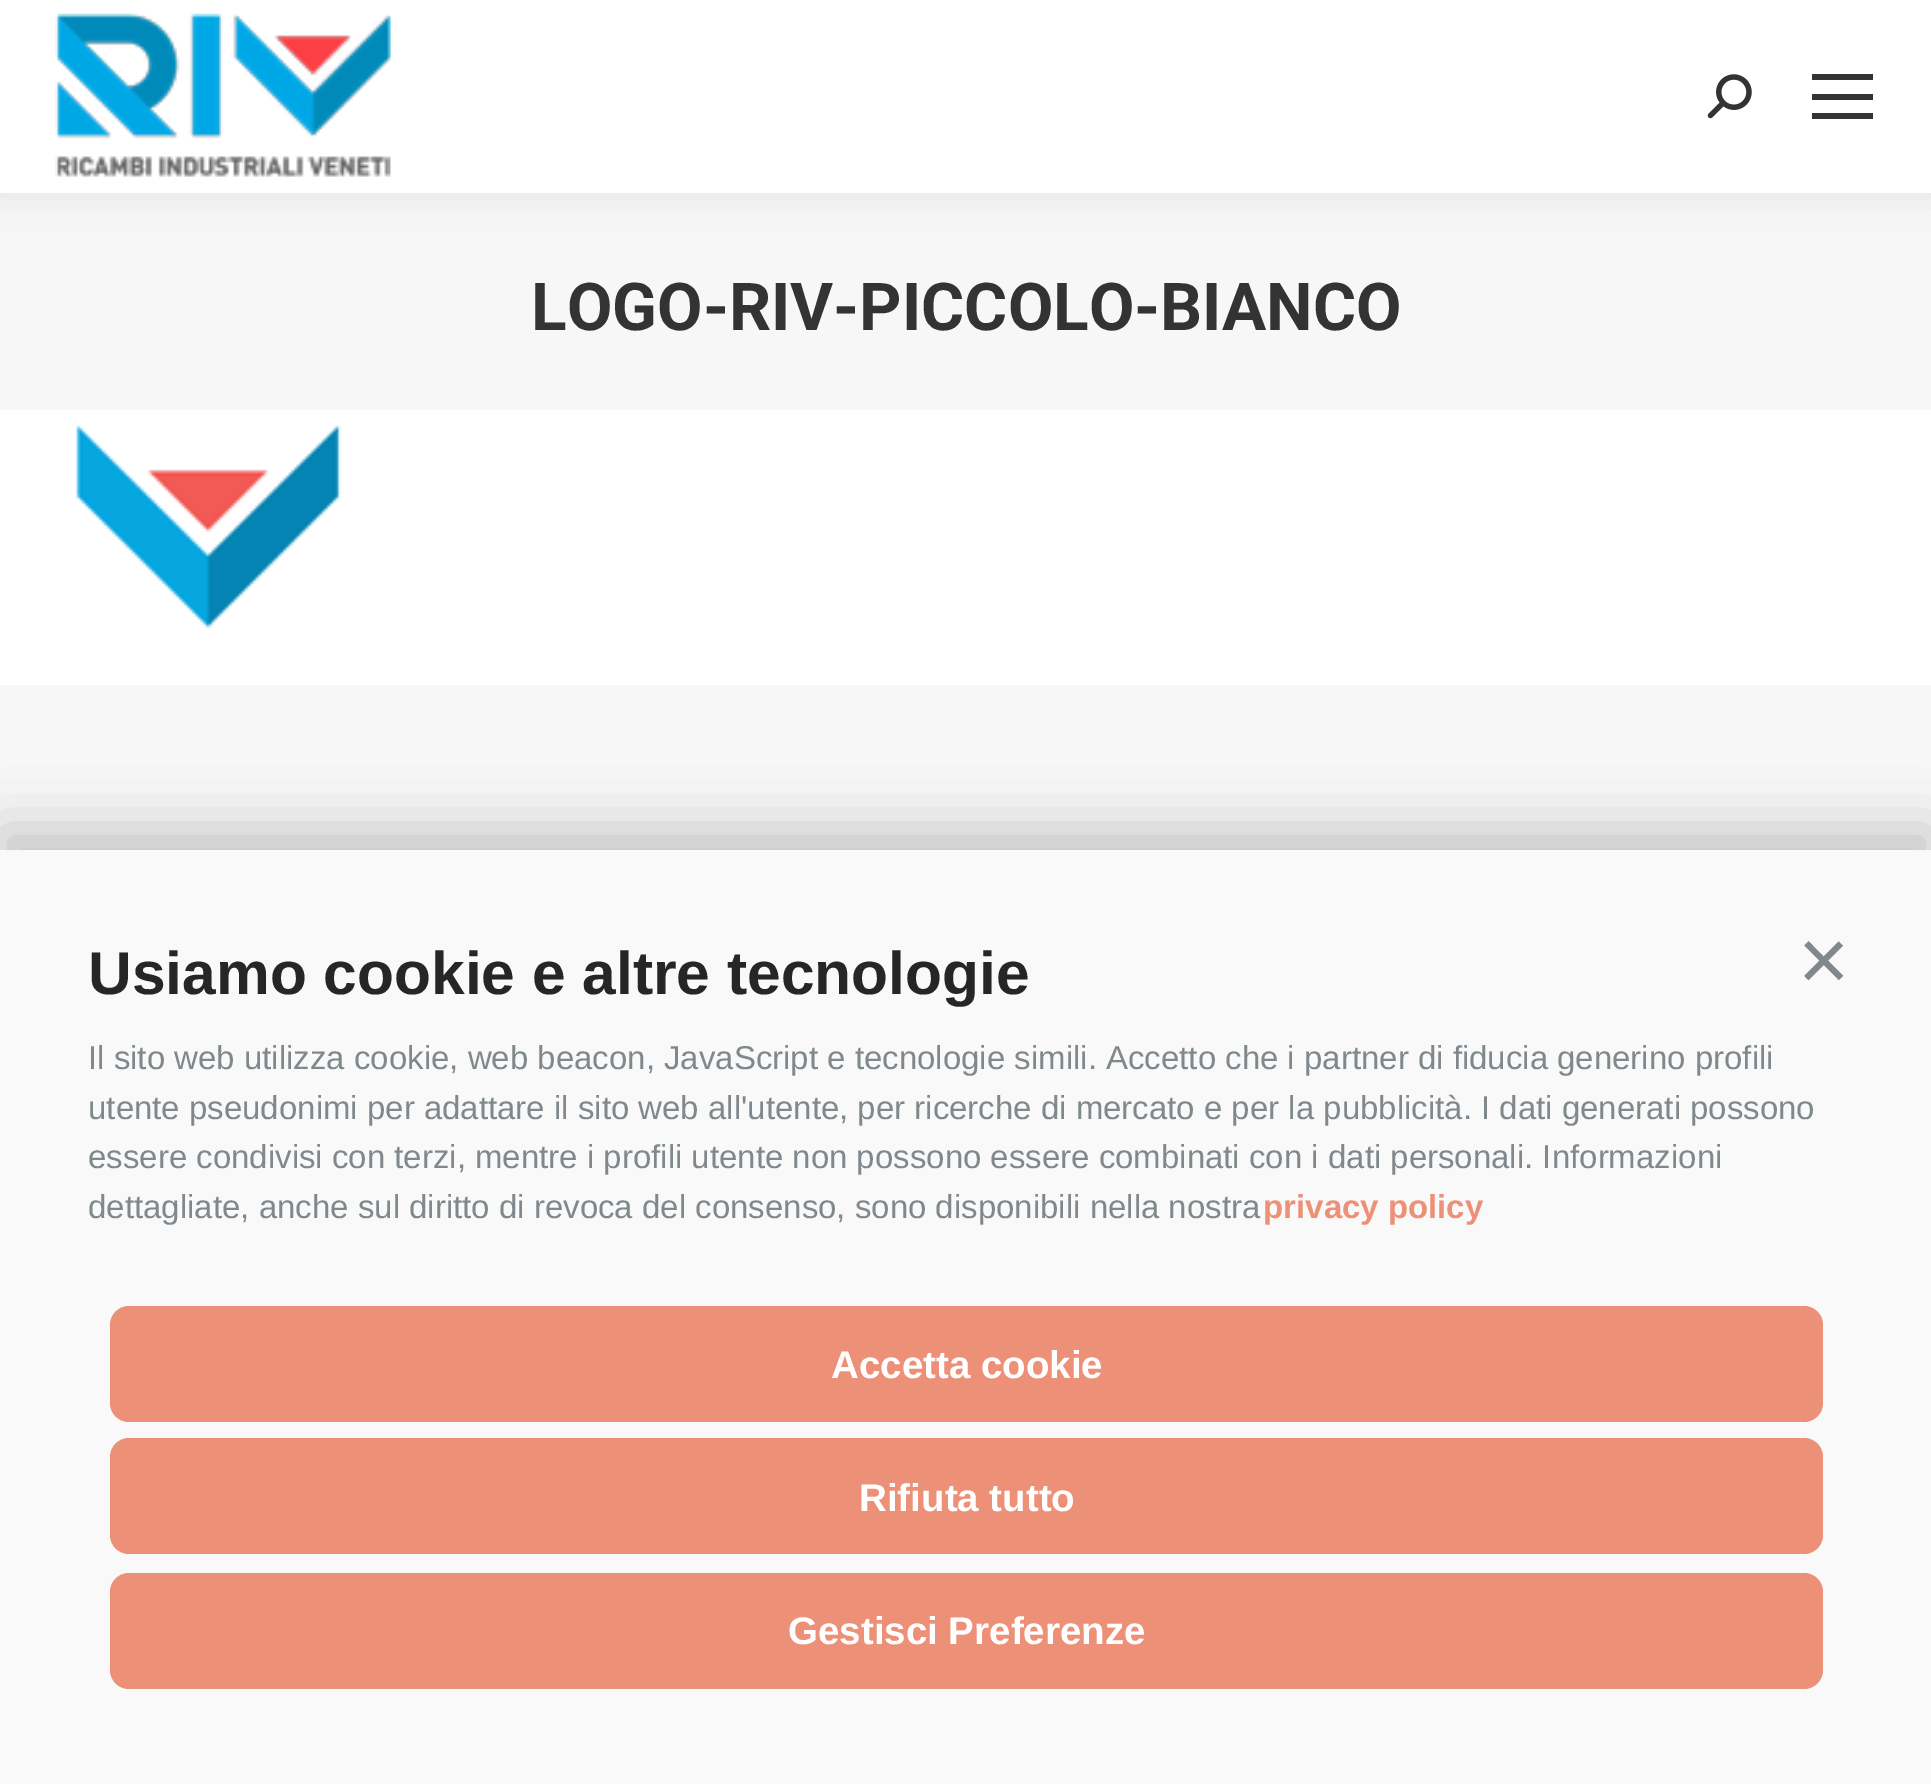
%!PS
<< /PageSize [1931 1784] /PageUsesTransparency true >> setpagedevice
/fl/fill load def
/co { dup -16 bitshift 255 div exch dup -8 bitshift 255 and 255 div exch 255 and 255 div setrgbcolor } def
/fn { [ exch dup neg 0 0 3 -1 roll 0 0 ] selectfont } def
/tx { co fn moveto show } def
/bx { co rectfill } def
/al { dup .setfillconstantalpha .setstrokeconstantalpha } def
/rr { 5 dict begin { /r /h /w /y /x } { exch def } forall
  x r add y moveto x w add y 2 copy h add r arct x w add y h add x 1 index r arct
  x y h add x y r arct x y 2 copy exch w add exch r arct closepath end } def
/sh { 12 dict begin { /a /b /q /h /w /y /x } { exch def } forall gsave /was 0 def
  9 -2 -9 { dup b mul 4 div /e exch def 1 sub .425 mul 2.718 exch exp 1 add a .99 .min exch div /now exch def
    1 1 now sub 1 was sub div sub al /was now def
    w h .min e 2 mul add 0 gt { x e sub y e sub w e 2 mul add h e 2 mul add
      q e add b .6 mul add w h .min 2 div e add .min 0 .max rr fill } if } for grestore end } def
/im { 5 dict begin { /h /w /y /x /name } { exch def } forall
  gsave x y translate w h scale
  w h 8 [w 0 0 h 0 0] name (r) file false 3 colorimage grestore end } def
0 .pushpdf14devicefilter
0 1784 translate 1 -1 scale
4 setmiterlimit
0 0 1931 1784 16#F7F7F7 bx
0 410 1931 275 16#FFFFFF bx
16#000000 co
-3 -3 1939 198 0 20.5 .07 sh
0 0 1931 193 16#FFFFFF bx
(media/1.raw) 55 13 336 164 im
(media/2.raw) 1707 74 45 45 im
1812 74 61 6 16#333333 bx
1812 94 61 6 16#333333 bx
1812 113 61 6 16#333333 bx
(media/3.raw) 76 425 266 203 im
16#000000 co
0 828 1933 935 0 27.5 .2 sh
0 850 1931 934 16#F9F9F9 bx
16#ED9078 co
110 1306 1713 116 19 rr fl
110 1438 1713 116 19 rr fl
110 1573 1713 116 19 rr fl
(LOGO-RIV-PICCOLO-BIANCO) 531 330 /Roboto-Bold 66 16#333333 tx
(Usiamo cookie e altre tecnologie) 88 994 /LiberationSans-Bold 60.5 16#262628 tx
(×) 1798 990 /LiberationSans-Regular 88 16#80888C tx
(Il sito web utilizza cookie, web beacon, JavaScript e tecnologie simili. Accetto che i partner di fiducia generino profili) 88 1069 /LiberationSans-Regular 33 16#80888C tx
(utente pseudonimi per adattare il sito web all'utente, per ricerche di mercato e per la pubblicità. I dati generati possono) 88 1119 /LiberationSans-Regular 33 16#80888C tx
(essere condivisi con terzi, mentre i profili utente non possono essere combinati con i dati personali. Informazioni) 88 1168 /LiberationSans-Regular 33 16#80888C tx
(dettagliate, anche sul diritto di revoca del consenso, sono disponibili nella nostra) 88 1218 /LiberationSans-Regular 33 16#80888C tx
(privacy policy) 1263 1218 /LiberationSans-Bold 33 16#ED9078 tx
(Accetta cookie) 831 1378 /LiberationSans-Bold 38.5 16#FFFFFF tx
(Rifiuta tutto) 859 1511 /LiberationSans-Bold 38.5 16#FFFFFF tx
(Gestisci Preferenze) 788 1644 /LiberationSans-Bold 38.5 16#FFFFFF tx
.poppdf14devicefilter showpage
